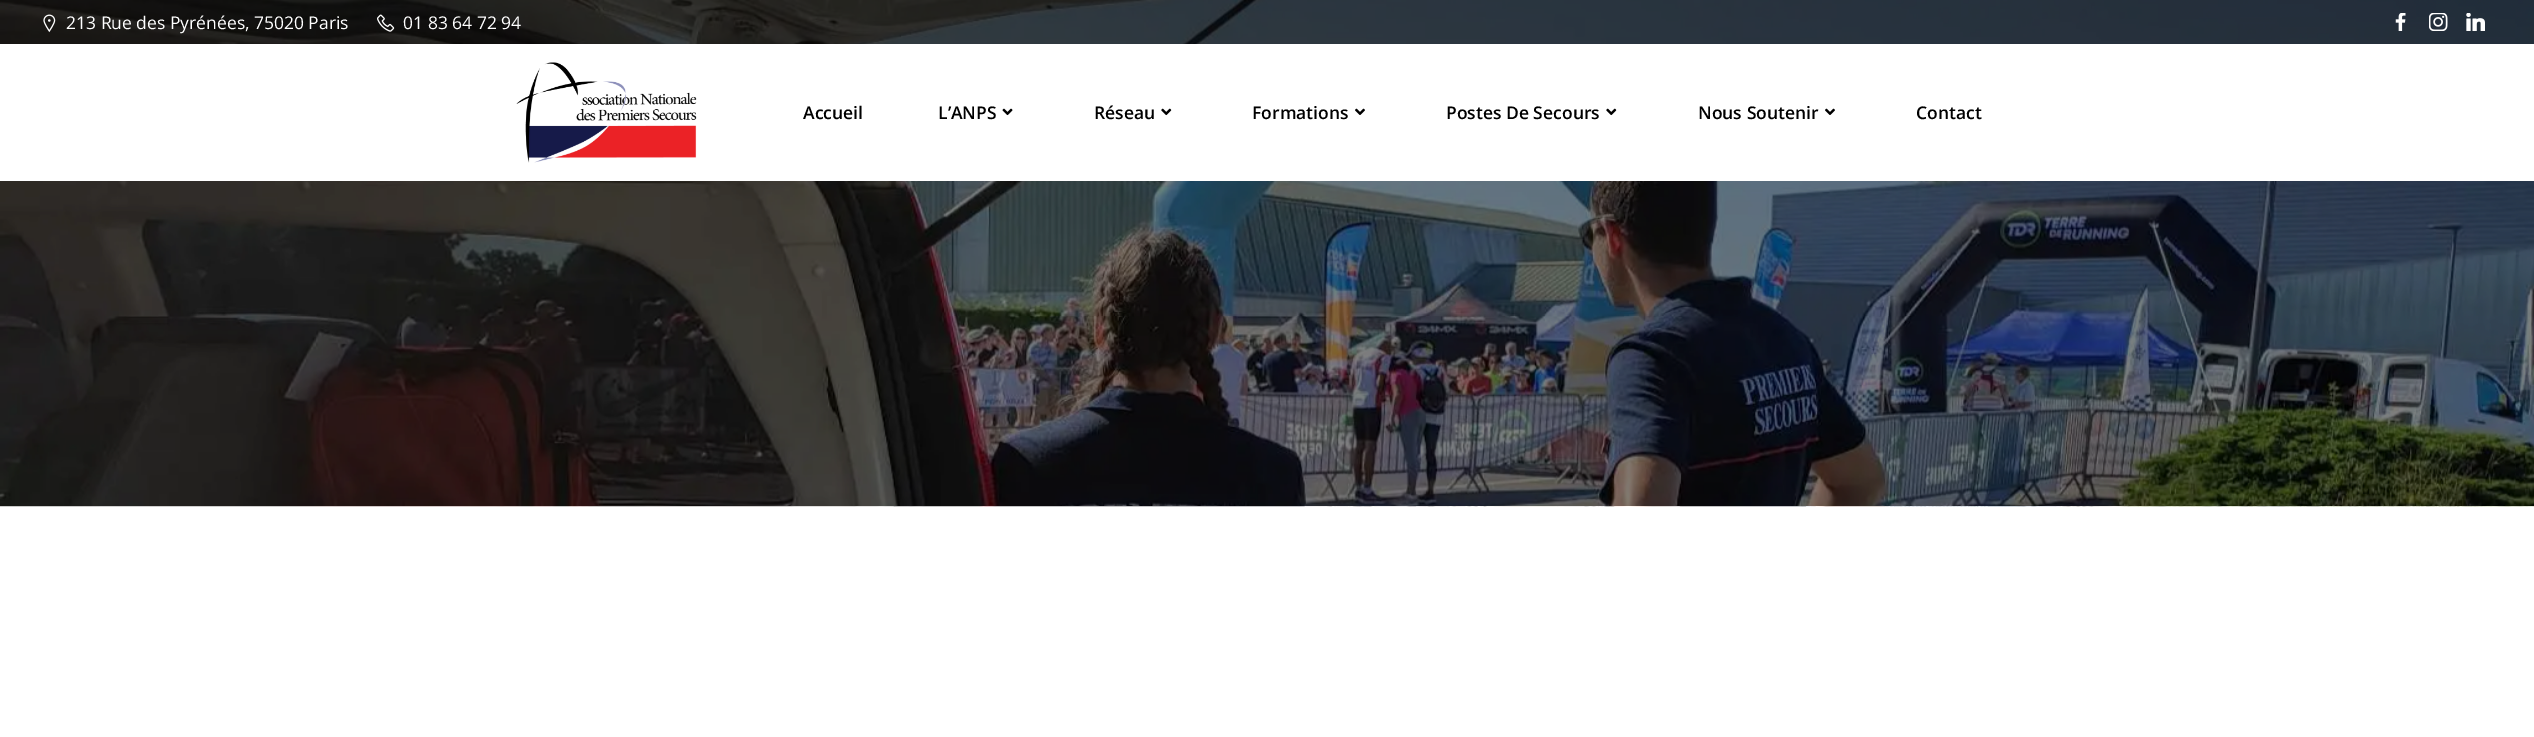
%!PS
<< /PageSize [2534 737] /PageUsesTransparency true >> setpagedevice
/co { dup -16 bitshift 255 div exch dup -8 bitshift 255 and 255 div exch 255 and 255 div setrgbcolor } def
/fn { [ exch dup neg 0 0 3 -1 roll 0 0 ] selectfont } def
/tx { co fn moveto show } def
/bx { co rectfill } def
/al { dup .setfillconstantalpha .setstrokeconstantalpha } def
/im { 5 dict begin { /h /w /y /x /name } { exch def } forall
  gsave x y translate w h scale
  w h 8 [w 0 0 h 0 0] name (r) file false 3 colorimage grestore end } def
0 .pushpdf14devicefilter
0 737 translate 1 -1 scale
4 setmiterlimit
0 0 2534 737 16#FFFFFF bx
(media/1.raw) 0 506 2534 1 im
(media/2.raw) 0 0 2534 506 im
0.5 al
0 0 2534 44 16#000000 bx
1 al
(media/3.raw) 43 14 13 19 im
(media/4.raw) 377 14 18 18 im
(media/5.raw) 2395 13 11 18 im
(media/6.raw) 2429 13 19 18 im
(media/7.raw) 2466 13 19 18 im
0 44 2534 137 16#FFFFFF bx
(media/8.raw) 516 62 181 101 im
(media/9.raw) 1002 108 11 8 im
(media/10.raw) 1161 108 11 8 im
(media/11.raw) 1355 108 10 7 im
(media/10.raw) 1606 108 11 8 im
(media/11.raw) 1825 108 10 7 im
(213 Rue des Pyrénées, 75020 Paris) 66 29 /OpenSans-Regular 17.5 16#FFFFFF tx
(01 83 64 72 94) 403 29 /OpenSans-Regular 17.5 16#FFFFFF tx
(Accueil) 803 119 /OpenSans-SemiBold 17.5 16#000000 tx
(L’ANPS) 938 119 /OpenSans-SemiBold 17.5 16#000000 tx
(Réseau) 1094 119 /OpenSans-SemiBold 17.5 16#000000 tx
(Formations) 1252 119 /OpenSans-SemiBold 17.5 16#000000 tx
(Postes De Secours) 1446 119 /OpenSans-SemiBold 17.5 16#000000 tx
(Nous Soutenir) 1698 119 /OpenSans-SemiBold 17.5 16#000000 tx
(Contact) 1916 119 /OpenSans-SemiBold 17.5 16#000000 tx
.poppdf14devicefilter showpage
